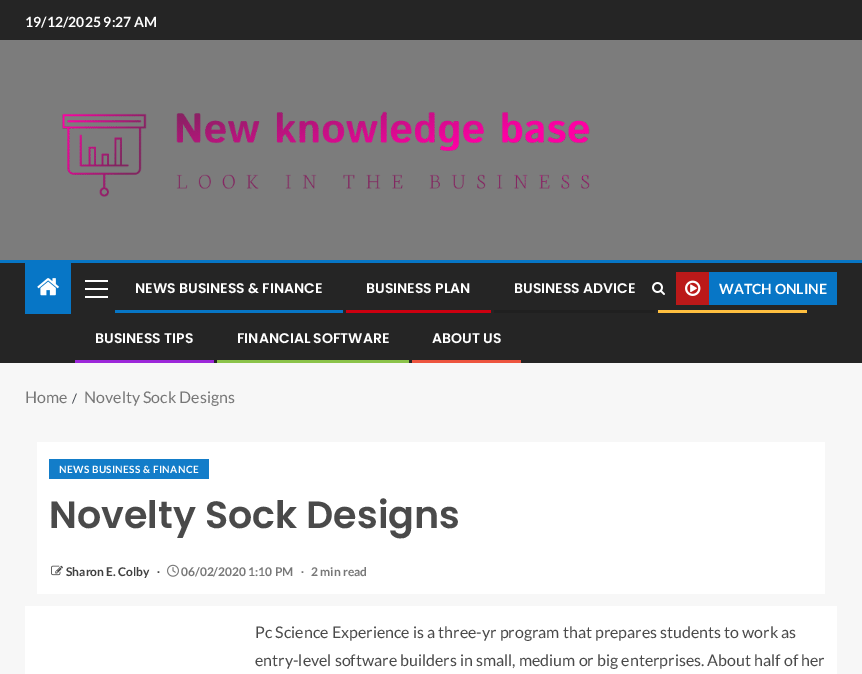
%!PS
<< /PageSize [862 674] >> setpagedevice
/mt/moveto load def
/co { dup -16 bitshift 255 div exch dup -8 bitshift 255 and 255 div exch 255 and 255 div setrgbcolor } def
/fn { [ exch dup neg 0 0 3 -1 roll 0 0 ] selectfont } def
/tx { co fn moveto show } def
/bx { co rectfill } def
/im { 5 dict begin { /h /w /y /x /name } { exch def } forall
  gsave x y translate w h scale
  w h 8 [w 0 0 h 0 0] name (r) file false 3 colorimage grestore end } def
0 674 translate 1 -1 scale
4 setmiterlimit
0 0 862 674 16#F7F7F7 bx
0 0 862 40 16#252525 bx
0 40 862 220 16#7C7C7C bx
(media/1.raw) 62 111 528 86 im
0 263 862 100 16#252525 bx
0 260 862 3 16#0776C6 bx
25 263 46 51 16#0776C6 bx
(media/2.raw) 37 278 22 18 im
85 288 23 2 16#FFFFFF bx
85 280 23 2 16#FFFFFF bx
85 296 23 2 16#FFFFFF bx
115 310 228 3 16#0776C6 bx
346 310 145 3 16#CC0010 bx
494 310 161 3 16#202020 bx
658 310 149 3 16#FFBF3F bx
75 360 139 3 16#9C27D9 bx
217 360 192 3 16#8BC34A bx
412 360 109 3 16#ED553F bx
(media/3.raw) 652 282 13 13 im
676 272 33 33 16#BB1919 bx
(media/4.raw) 685 280 16 16 im
709 272 128 33 16#0776C6 bx
37 442 788 152 16#FFFFFF bx
49 459 160 20 16#137DC9 bx
(media/5.raw) 51 565 12 11 im
(media/6.raw) 167 564 12 13 im
25 606 812 68 16#FFFFFF bx
(19/12/2025 9:27 AM) 25 27 /Lato-Bold 14 16#FFFFFF tx
(NEWS BUSINESS & FINANCE) 135 293 /Poppins-SemiBold 14 16#FFFFFF tx
(BUSINESS PLAN) 366 293 /Poppins-SemiBold 14 16#FFFFFF tx
(BUSINESS ADVICE) 514 293 /Poppins-SemiBold 14 16#FFFFFF tx
(BUSINESS TIPS) 95 343 /Poppins-SemiBold 14 16#FFFFFF tx
(FINANCIAL SOFTWARE) 237 343 /Poppins-SemiBold 14 16#FFFFFF tx
(ABOUT US) 432 343 /Poppins-SemiBold 14 16#FFFFFF tx
(WATCH ONLINE) 719 294 /Lato-Bold 14 16#FFFFFF tx
(Home) 25 403 /Lato-Regular 16 16#777777 tx
(/) 72 403 /Lato-Regular 13 16#393E46 tx
(Novelty Sock Designs) 84 403 /Lato-Regular 16 16#777777 tx
/Lato-Bold 10 fn
16#FFFFFF co
59 473 mt .35 0 (NEWS BUSINESS & FINANCE) ashow
(Novelty Sock Designs) 49 528 /Poppins-SemiBold 38 16#4A4A4A tx
(Sharon E. Colby) 66 576 /Lato-Bold 12 16#404040 tx
(∙) 157 576 /LiberationSerif-Bold 12 16#4A4A4A tx
(06/02/2020 1:10 PM) 181 576 /Lato-Bold 12 16#777777 tx
(∙) 301 576 /LiberationSerif-Bold 12 16#777777 tx
(2 min read) 311 576 /Lato-Bold 12 16#777777 tx
(Pc Science Experience is a three-yr program that prepares students to work as) 255 638 /Lato-Regular 16 16#4A4A4A tx
(entry-level software builders in small, medium or big enterprises. About half of her) 255 666 /Lato-Regular 16 16#4A4A4A tx
showpage
